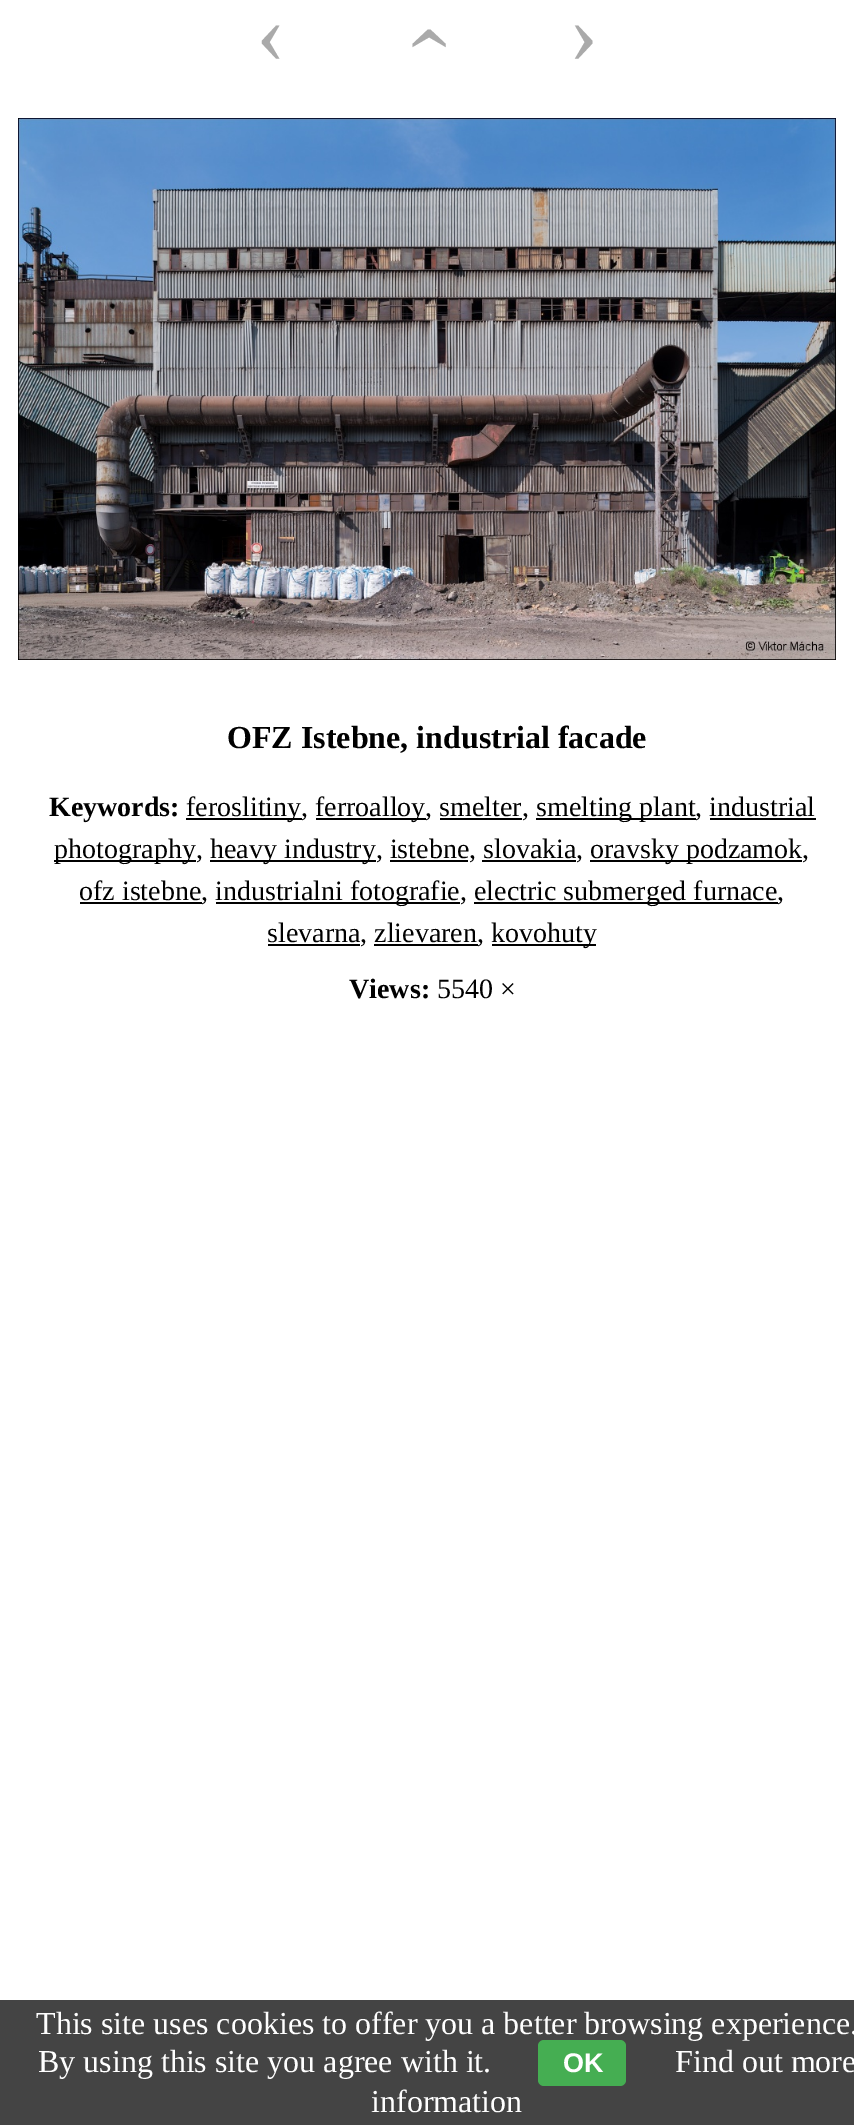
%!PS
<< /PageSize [854 2125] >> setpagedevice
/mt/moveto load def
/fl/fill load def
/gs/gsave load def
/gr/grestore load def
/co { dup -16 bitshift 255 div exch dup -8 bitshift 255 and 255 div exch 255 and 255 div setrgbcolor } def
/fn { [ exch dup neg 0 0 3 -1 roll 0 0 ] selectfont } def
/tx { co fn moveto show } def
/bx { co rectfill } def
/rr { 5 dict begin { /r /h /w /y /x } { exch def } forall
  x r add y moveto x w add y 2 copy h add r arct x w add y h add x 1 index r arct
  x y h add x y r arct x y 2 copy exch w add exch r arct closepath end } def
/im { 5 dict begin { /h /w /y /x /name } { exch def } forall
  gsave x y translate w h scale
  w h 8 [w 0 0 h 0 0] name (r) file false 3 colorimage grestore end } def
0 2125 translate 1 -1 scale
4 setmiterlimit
0 0 854 2125 16#FFFFFF bx
(media/1.raw) 18 118 818 542 im
186 818 116 2 16#000000 bx
316 818 110 2 16#000000 bx
536 818 160 2 16#000000 bx
440 818 82 2 16#000000 bx
710 818 106 2 16#000000 bx
54 860 142 2 16#000000 bx
210 860 166 2 16#000000 bx
590 860 212 2 16#000000 bx
390 860 78 2 16#000000 bx
482 860 94 2 16#000000 bx
80 902 122 2 16#000000 bx
216 902 244 2 16#000000 bx
474 902 304 2 16#000000 bx
268 944 92 2 16#000000 bx
492 944 104 2 16#000000 bx
374 944 104 2 16#000000 bx
0 2000 854 125 16#444444 bx
(‹) 256 62 /LiberationSerif-Regular 88 16#AAAAAA tx
gs 449 53 translate -90 rotate 0 0 mt (›) show gr
(›) 569 62 /LiberationSerif-Regular 88 16#AAAAAA tx
(OFZ Istebne, industrial facade) 227 748 /LiberationSerif-Bold 32 16#000000 tx
(Keywords:) 49 816 /LiberationSerif-Bold 28 16#000000 tx
(feroslitiny,) 186 816 /LiberationSerif-Regular 28 16#000000 tx
(ferroalloy, smelter,) 315 816 /LiberationSerif-Regular 28 16#000000 tx
(smelting plant, industrial) 536 816 /LiberationSerif-Regular 28 16#000000 tx
(photography,) 54 858 /LiberationSerif-Regular 28 16#000000 tx
(heavy industry, istebne, slovakia,) 210 858 /LiberationSerif-Regular 28 16#000000 tx
(oravsky podzamok,) 590 858 /LiberationSerif-Regular 28 16#000000 tx
(ofz istebne,) 79 900 /LiberationSerif-Regular 28 16#000000 tx
(industrialni fotografie,) 215 900 /LiberationSerif-Regular 28 16#000000 tx
(electric submerged furnace,) 474 900 /LiberationSerif-Regular 28 16#000000 tx
(slevarna, zlievaren,) 267 942 /LiberationSerif-Regular 28 16#000000 tx
(kovohuty) 491 942 /LiberationSerif-Regular 28 16#000000 tx
(Views:) 349 998 /LiberationSerif-Bold 28 16#000000 tx
(5540 ×) 437 998 /LiberationSerif-Regular 28 16#000000 tx
(This site uses cookies to offer you a better browsing experience.) 36 2034 /LiberationSerif-Regular 32 16#FFFFFF tx
(By using this site you agree with it.) 38 2072 /LiberationSerif-Regular 32 16#FFFFFF tx
16#45AE52 co
538 2040 88 46 6 rr fl
(OK) 563 2072 /LiberationSans-Bold 27 16#FFFFFF tx
(Find out more) 675 2072 /LiberationSerif-Regular 32 16#FFFFFF tx
(information) 371 2112 /LiberationSerif-Regular 32 16#FFFFFF tx
showpage
